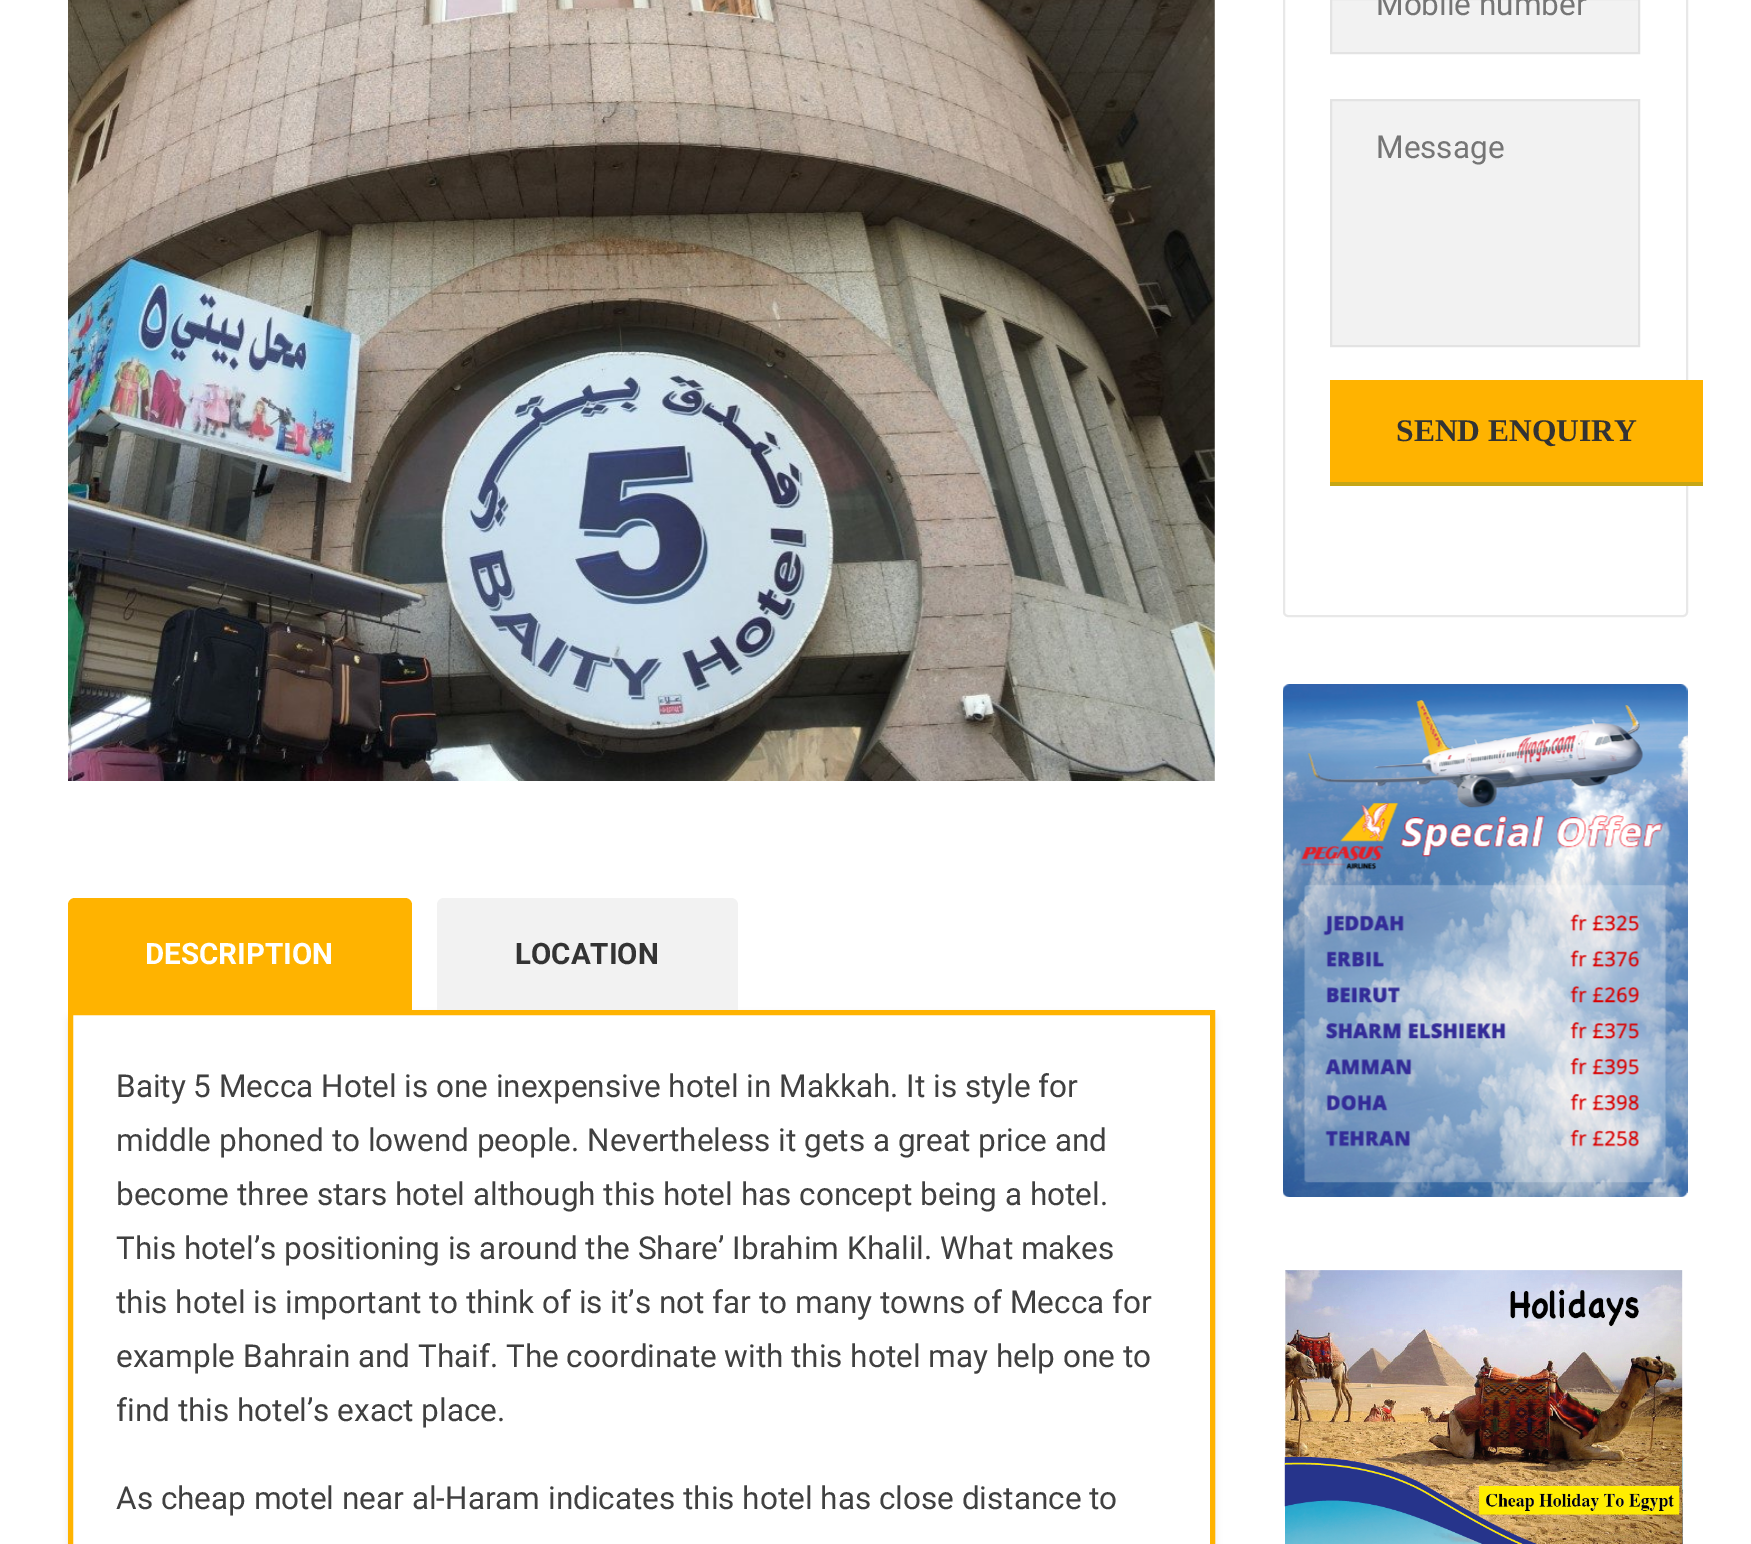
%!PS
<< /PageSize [1751 1544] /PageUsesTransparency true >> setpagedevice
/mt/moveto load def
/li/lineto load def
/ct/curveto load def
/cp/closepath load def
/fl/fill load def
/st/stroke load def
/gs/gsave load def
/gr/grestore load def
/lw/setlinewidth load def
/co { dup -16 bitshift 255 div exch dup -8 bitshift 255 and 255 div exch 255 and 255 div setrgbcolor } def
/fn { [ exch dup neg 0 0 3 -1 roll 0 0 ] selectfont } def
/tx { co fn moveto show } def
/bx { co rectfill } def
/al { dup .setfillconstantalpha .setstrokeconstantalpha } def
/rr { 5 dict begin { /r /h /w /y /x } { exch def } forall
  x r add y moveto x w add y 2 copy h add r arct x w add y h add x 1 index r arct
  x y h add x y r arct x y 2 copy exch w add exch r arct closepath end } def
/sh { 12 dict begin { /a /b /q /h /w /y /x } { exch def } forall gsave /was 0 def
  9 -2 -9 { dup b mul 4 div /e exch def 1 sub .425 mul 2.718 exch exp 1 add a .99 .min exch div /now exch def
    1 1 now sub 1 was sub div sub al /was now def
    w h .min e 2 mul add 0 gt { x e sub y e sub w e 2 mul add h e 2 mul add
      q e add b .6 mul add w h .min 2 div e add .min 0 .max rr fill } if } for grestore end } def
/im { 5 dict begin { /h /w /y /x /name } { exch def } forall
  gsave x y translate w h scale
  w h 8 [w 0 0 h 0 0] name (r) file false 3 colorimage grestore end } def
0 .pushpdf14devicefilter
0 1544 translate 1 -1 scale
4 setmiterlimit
0 0 1751 1544 16#FFFFFF bx
16#E8E8E8 co
2 lw
1284 -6 403 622 4 rr st
16#F2F2F2 co
1331 -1 mt 1639 -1 li 1639 53 li 1331 53 li cp gs fl gr
16#E3E3E3 co
st
16#F2F2F2 co
1331 100 mt 1639 100 li 1639 346 li 1331 346 li cp gs fl gr
16#E3E3E3 co
st
1330 482 373 4 16#C6A615 bx
1330 380 373 102 16#FFB300 bx
(media/1.raw) 1283 684 405 513 im
(media/2.raw) 1284 1270 399 274 im
(media/3.raw) 68 0 1147 781 im
gs
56 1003 mt 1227 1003 li 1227 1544 li 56 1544 li cp 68 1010 mt 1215 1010 li 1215 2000 li 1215 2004 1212 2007 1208 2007 ct 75 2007 li 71 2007 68 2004 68 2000 ct cp eoclip newpath
16#000000 co
68 1015 1147 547 7 3.5 .09 sh
gr
75 898 mt 405 898 li 409 898 412 901 412 905 ct 412 1010 li 68 1010 li 68 905 li 68 901 71 898 75 898 ct cp fl
16#F2F2F2 co
444 898 mt 731 898 li 735 898 738 901 738 905 ct 738 1010 li 437 1010 li 437 905 li 437 901 440 898 444 898 ct cp fl
16#FFB300 co
5 lw
70.5 1012.5 1142 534 rectstroke
(Mobile number) 1376 15 /Roboto-Regular 31.5 16#757575 tx
(Message) 1376 158 /Roboto-Regular 31.5 16#757575 tx
(SEND ENQUIRY) 1396 441 /Tinos-Bold 31.5 16#333333 tx
(DESCRIPTION) 145 964 /Roboto-Bold 29.5 16#FFFFFF tx
(LOCATION) 515 964 /Roboto-Bold 29.5 16#333333 tx
(Baity 5 Mecca Hotel is one inexpensive hotel in Makkah. It is style for) 116 1097 /Roboto-Regular 31.5 16#404040 tx
(middle phoned to lowend people. Nevertheless it gets a great price and) 116 1151 /Roboto-Regular 31.5 16#404040 tx
(become three stars hotel although this hotel has concept being a hotel.) 116 1205 /Roboto-Regular 31.5 16#404040 tx
(This hotel’s positioning is around the Share’ Ibrahim Khalil. What makes) 116 1259 /Roboto-Regular 31.5 16#404040 tx
(this hotel is important to think of is it’s not far to many towns of Mecca for) 116 1313 /Roboto-Regular 31.5 16#404040 tx
(example Bahrain and Thaif. The coordinate with this hotel may help one to) 116 1367 /Roboto-Regular 31.5 16#404040 tx
(find this hotel’s exact place.) 116 1421 /Roboto-Regular 31.5 16#404040 tx
(As cheap motel near al-Haram indicates this hotel has close distance to) 116 1509 /Roboto-Regular 31.5 16#404040 tx
.poppdf14devicefilter showpage
